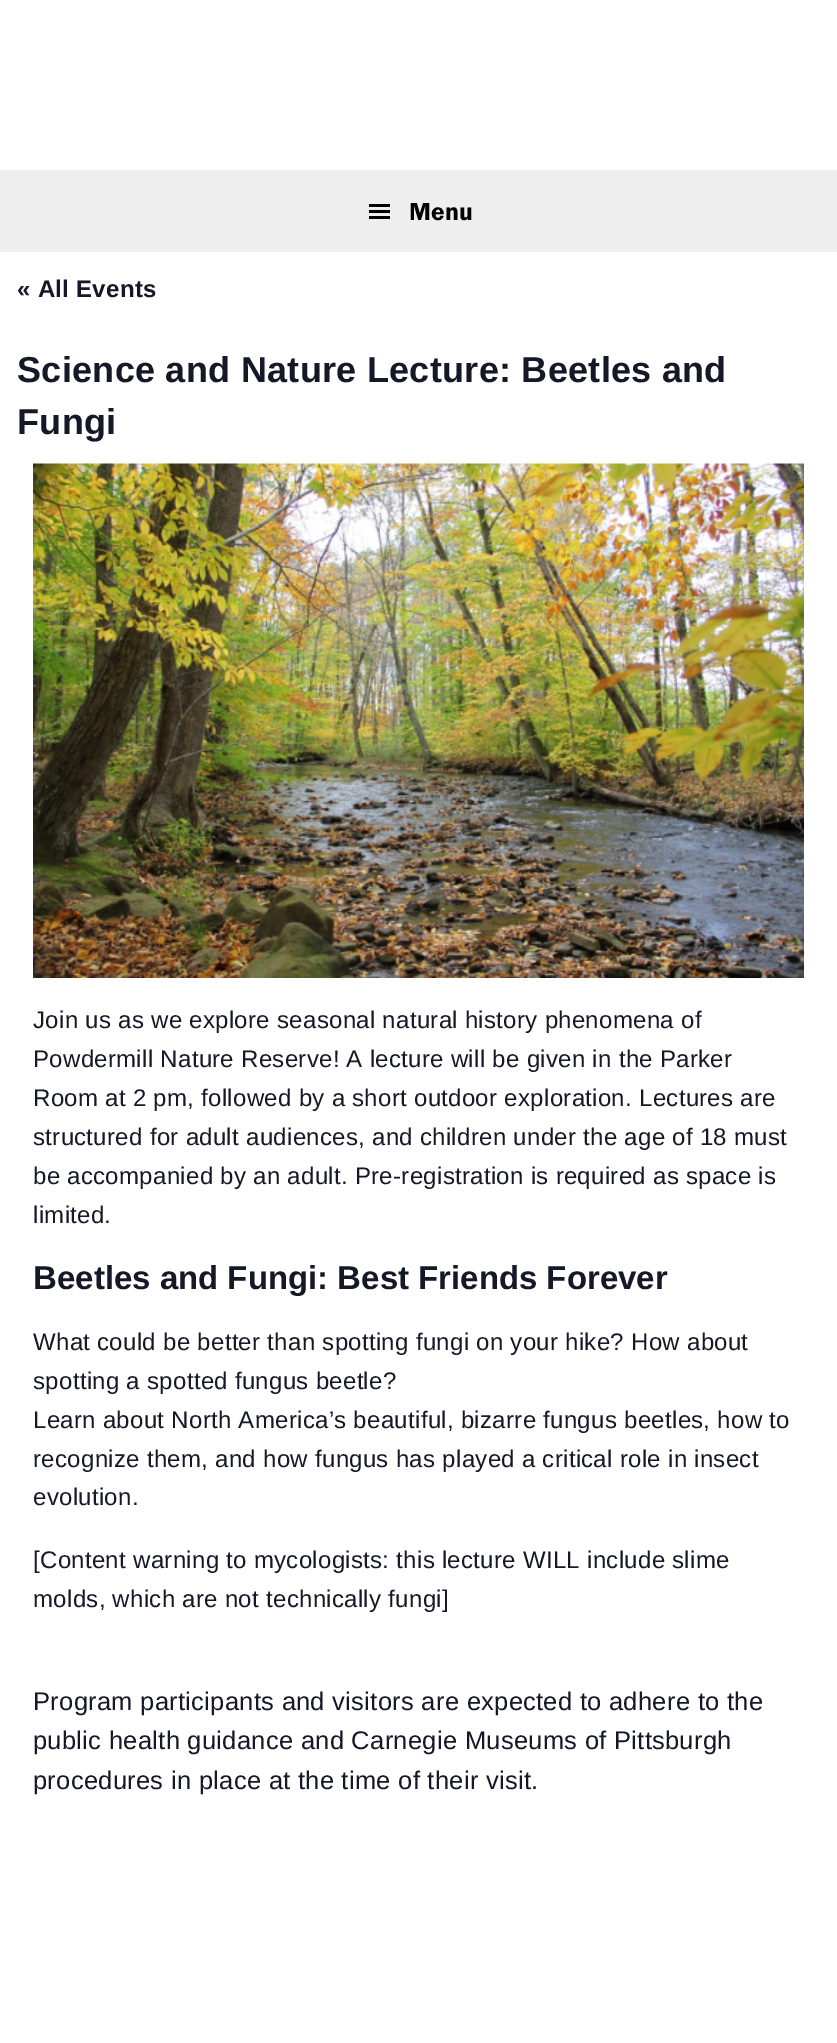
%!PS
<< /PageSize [837 2043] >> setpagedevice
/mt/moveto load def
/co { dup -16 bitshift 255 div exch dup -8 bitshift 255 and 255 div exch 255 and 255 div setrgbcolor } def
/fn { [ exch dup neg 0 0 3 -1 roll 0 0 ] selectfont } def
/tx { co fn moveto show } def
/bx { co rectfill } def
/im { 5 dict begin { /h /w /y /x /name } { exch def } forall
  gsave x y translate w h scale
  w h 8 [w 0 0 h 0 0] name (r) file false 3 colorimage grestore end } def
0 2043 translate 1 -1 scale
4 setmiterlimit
0 0 837 2043 16#FFFFFF bx
0 170 837 82 16#EEEEEE bx
(media/1.raw) 369 204 21 15 im
(media/2.raw) 33 463 771 515 im
(Menu) 409 220 /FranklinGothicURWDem-Regular 25.5 16#000000 tx
/LiberationSans-Bold 24 fn
16#141827 co
17 297 mt .3 0 (« All Events) ashow
/LiberationSans-Bold 36 fn
17 382 mt .3 0 (Science and Nature Lecture: Beetles and) ashow
17 434 mt .3 0 (Fungi) ashow
/LiberationSans-Regular 24 fn
33 1028 mt .3 0 (Join us as we explore seasonal natural history phenomena of) ashow
33 1067 mt .3 0 (Powdermill Nature Reserve! A lecture will be given in the Parker) ashow
33 1106 mt .3 0 (Room at 2 pm, followed by a short outdoor exploration. Lectures are) ashow
33 1145 mt .3 0 (structured for adult audiences, and children under the age of 18 must) ashow
33 1184 mt .3 0 (be accompanied by an adult. Pre-registration is required as space is) ashow
33 1223 mt .3 0 (limited.) ashow
(Beetles and Fungi: Best Friends Forever) 33 1289 /LiberationSans-Bold 33 16#141827 tx
/LiberationSans-Regular 24 fn
33 1350 mt .3 0 (What could be better than spotting fungi on your hike? How about) ashow
33 1389 mt .3 0 (spotting a spotted fungus beetle?) ashow
33 1428 mt .3 0 (Learn about North America’s beautiful, bizarre fungus beetles, how to) ashow
33 1467 mt .3 0 (recognize them, and how fungus has played a critical role in insect) ashow
33 1505 mt .3 0 (evolution.) ashow
33 1568 mt .3 0 ([Content warning to mycologists: this lecture WILL include slime) ashow
33 1607 mt .3 0 (molds, which are not technically fungi]) ashow
/LiberationSans-Regular 25.5 fn
33 1710 mt .3 0 (Program participants and visitors are expected to adhere to the) ashow
33 1749 mt .3 0 (public health guidance and Carnegie Museums of Pittsburgh) ashow
33 1789 mt .3 0 (procedures in place at the time of their visit.) ashow
showpage
